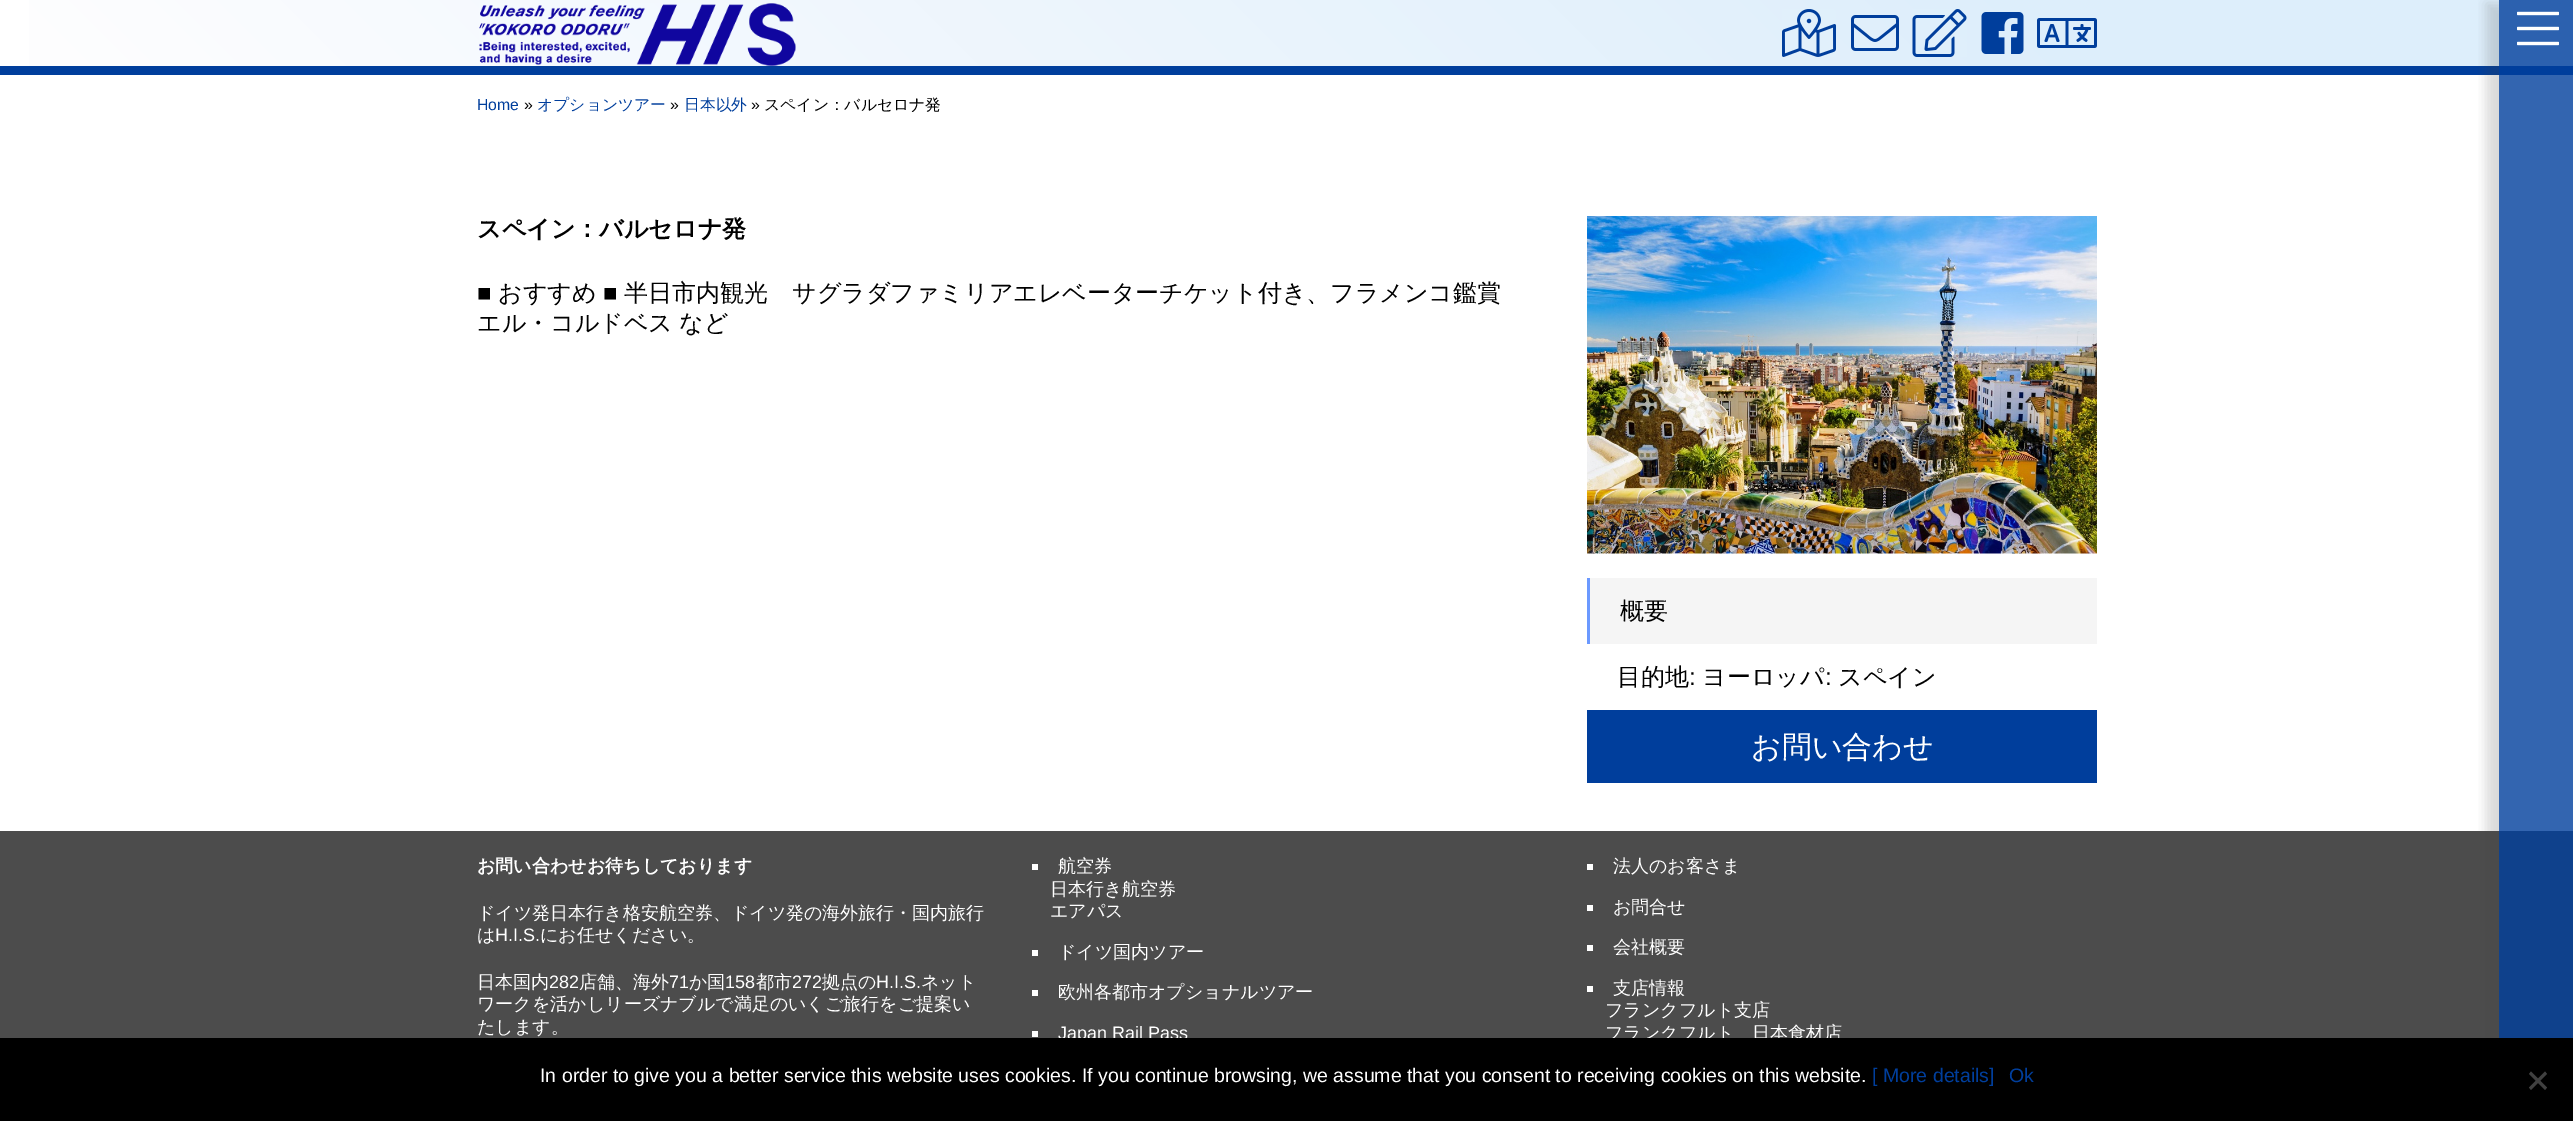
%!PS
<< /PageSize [2573 1121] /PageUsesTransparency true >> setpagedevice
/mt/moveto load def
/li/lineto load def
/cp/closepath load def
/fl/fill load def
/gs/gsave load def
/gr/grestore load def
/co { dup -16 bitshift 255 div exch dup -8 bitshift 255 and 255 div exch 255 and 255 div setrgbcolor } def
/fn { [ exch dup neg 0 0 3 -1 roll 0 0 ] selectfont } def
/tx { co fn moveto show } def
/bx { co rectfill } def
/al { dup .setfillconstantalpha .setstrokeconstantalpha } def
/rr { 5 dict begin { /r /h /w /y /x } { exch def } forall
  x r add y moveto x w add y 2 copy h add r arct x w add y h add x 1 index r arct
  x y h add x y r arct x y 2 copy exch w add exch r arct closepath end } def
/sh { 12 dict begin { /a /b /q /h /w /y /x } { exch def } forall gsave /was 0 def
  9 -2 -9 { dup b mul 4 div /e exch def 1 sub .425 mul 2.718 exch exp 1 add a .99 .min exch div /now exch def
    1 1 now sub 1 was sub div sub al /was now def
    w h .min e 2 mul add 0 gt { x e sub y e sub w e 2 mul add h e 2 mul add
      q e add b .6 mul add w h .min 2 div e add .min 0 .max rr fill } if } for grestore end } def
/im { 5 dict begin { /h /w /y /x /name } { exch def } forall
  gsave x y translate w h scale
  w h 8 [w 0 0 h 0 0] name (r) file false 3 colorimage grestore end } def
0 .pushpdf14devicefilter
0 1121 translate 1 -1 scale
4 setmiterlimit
0 0 2573 1121 16#FFFFFF bx
2499 75 74 756 16#3365B0 bx
gs 29 0 mt 2499 0 li 2499 66 li 29 66 li cp clip newpath
<< /ShadingType 2 /ColorSpace /DeviceRGB /Coords [627 693 1947 -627] /Extend [true true] /Function << /FunctionType 3 /Domain [0 1] /Functions [<< /FunctionType 2 /Domain [0 1] /C0 [.996 .996 1] /C1 [.867 .933 .984] /N 1 >> << /FunctionType 2 /Domain [0 1] /C0 [.867 .933 .984] /C1 [.867 .933 .984] /N 1 >>] /Bounds [.79] /Encode [0 1 0 1] >> >> shfill gr
gs 2499 0 mt 2573 0 li 2573 66 li 2499 66 li cp clip newpath
<< /ShadingType 2 /ColorSpace /DeviceRGB /Coords [627 693 1947 -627] /Extend [true true] /Function << /FunctionType 3 /Domain [0 1] /Functions [<< /FunctionType 2 /Domain [0 1] /C0 [.2 .392 .69] /C1 [.173 .38 .686] /N 1 >> << /FunctionType 2 /Domain [0 1] /C0 [.173 .38 .686] /C1 [.173 .38 .686] /N 1 >>] /Bounds [.79] /Encode [0 1 0 1] >> >> shfill gr
0 66 2573 9 16#003E9C bx
(media/1.raw) 479 3 317 63 im
(media/2.raw) 1782 9 54 48 im
(media/3.raw) 1851 15 48 36 im
(media/4.raw) 1912 9 55 48 im
(media/5.raw) 1981 12 43 42 im
(media/6.raw) 2037 18 60 30 im
(media/7.raw) 1587 216 510 338 im
1590 578 507 66 16#F5F5F5 bx
1587 578 3 66 16#6B99FF bx
1587 710 510 73 16#003E9C bx
0 831 2499 207 16#4C4C4C bx
2499 831 74 207 16#0F418C bx
gs
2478 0 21 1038 rectclip
16#404040 co
2486 3 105 1116 0 6 .2 sh
gr
(media/8.raw) 2517 11 42 35 im
1032 864 6 6 16#FFFFFF bx
1032 950 6 6 16#FFFFFF bx
1032 990 6 6 16#FFFFFF bx
1032 1031 6 6 16#FFFFFF bx
1587 864 6 6 16#FFFFFF bx
1587 905 6 6 16#FFFFFF bx
1587 945 6 6 16#FFFFFF bx
1587 986 6 6 16#FFFFFF bx
(Home) 477 110 /LiberationSans-Regular 15.8 16#003E9C tx
(») 524 110 /LiberationSans-Regular 15.8 16#000000 tx
(オプションツアー) 537 110 /WenQuanYiZenHei-Medium 15.8 16#003E9C tx
(») 670 110 /LiberationSans-Regular 15.8 16#000000 tx
(日本以外) 684 110 /WenQuanYiZenHei-Medium 15.8 16#003E9C tx
(») 751 110 /LiberationSans-Regular 15.8 16#000000 tx
(スペイン：バルセロナ発) 764 110 /WenQuanYiZenHei-Medium 15.8 16#000000 tx
(スペイン：バルセロナ発) 477 237 /WenQuanYiZenHei-Bold 24 16#000000 tx
(■) 477 301 /LiberationSans-Regular 24 16#000000 tx
(おすすめ) 498 301 /WenQuanYiZenHei-Medium 24 16#000000 tx
(■) 603 301 /LiberationSans-Regular 24 16#000000 tx
(半日市内観光　サグラダファミリアエレベーターチケット付き、フラメンコ鑑賞) 624 301 /WenQuanYiZenHei-Medium 24 16#000000 tx
477 331 mt -1 0 32 (エル・コルドベス など) widthshow
(概要) 1620 619 /WenQuanYiZenHei-Medium 24 16#000000 tx
(目的地) 1617 685 /WenQuanYiZenHei-Medium 24 16#000000 tx
(:) 1689 685 /LiberationSans-Regular 24 16#000000 tx
(ヨーロッパ) 1702 685 /WenQuanYiZenHei-Medium 24 16#000000 tx
(:) 1825 685 /LiberationSans-Regular 24 16#000000 tx
(スペイン) 1838 685 /WenQuanYiZenHei-Medium 24 16#000000 tx
(お問い合わせ) 1751 757 /WenQuanYiZenHei-Medium 30 16#FFFFFF tx
(お問い合わせお待ちしております) 477 872 /WenQuanYiZenHei-Bold 18 16#FFFFFF tx
(ドイツ発日本行き格安航空券、ドイツ発の海外旅行・国内旅行) 477 919 /WenQuanYiZenHei-Medium 18 16#FFFFFF tx
(は) 477 941 /WenQuanYiZenHei-Medium 18 16#FFFFFF tx
(H.I.S.) 495 941 /LiberationSans-Regular 18 16#FFFFFF tx
(にお任せください。) 540 941 /WenQuanYiZenHei-Medium 18 16#FFFFFF tx
(日本国内) 477 988 /WenQuanYiZenHei-Medium 18 16#FFFFFF tx
(282) 549 988 /LiberationSans-Regular 18 16#FFFFFF tx
(店舗、海外) 579 988 /WenQuanYiZenHei-Medium 18 16#FFFFFF tx
(71) 669 988 /LiberationSans-Regular 18 16#FFFFFF tx
(か国) 689 988 /WenQuanYiZenHei-Medium 18 16#FFFFFF tx
(158) 725 988 /LiberationSans-Regular 18 16#FFFFFF tx
(都市) 756 988 /WenQuanYiZenHei-Medium 18 16#FFFFFF tx
(272) 792 988 /LiberationSans-Regular 18 16#FFFFFF tx
(拠点の) 822 988 /WenQuanYiZenHei-Medium 18 16#FFFFFF tx
(H.I.S.) 876 988 /LiberationSans-Regular 18 16#FFFFFF tx
(ネット) 921 988 /WenQuanYiZenHei-Medium 18 16#FFFFFF tx
(ワークを活かしリーズナブルで満足のいくご旅行をご提案い) 477 1010 /WenQuanYiZenHei-Medium 18 16#FFFFFF tx
(たします。) 477 1033 /WenQuanYiZenHei-Medium 18 16#FFFFFF tx
(航空券) 1058 872 /WenQuanYiZenHei-Medium 18 16#FFFFFF tx
(日本行き航空券) 1050 895 /WenQuanYiZenHei-Medium 18 16#FFFFFF tx
(エアパス) 1050 917 /WenQuanYiZenHei-Medium 18 16#FFFFFF tx
(ドイツ国内ツアー) 1058 958 /WenQuanYiZenHei-Medium 18 16#FFFFFF tx
(欧州各都市オプショナルツアー) 1058 998 /WenQuanYiZenHei-Medium 18 16#FFFFFF tx
(Japan Rail Pass) 1058 1039 /LiberationSans-Regular 18 16#FFFFFF tx
(法人のお客さま) 1613 872 /WenQuanYiZenHei-Medium 18 16#FFFFFF tx
(お問合せ) 1613 913 /WenQuanYiZenHei-Medium 18 16#FFFFFF tx
(会社概要) 1613 953 /WenQuanYiZenHei-Medium 18 16#FFFFFF tx
(支店情報) 1613 994 /WenQuanYiZenHei-Medium 18 16#FFFFFF tx
(フランクフルト支店) 1605 1016 /WenQuanYiZenHei-Medium 18 16#FFFFFF tx
(フランクフルト　日本食材店) 1605 1039 /WenQuanYiZenHei-Medium 18 16#FFFFFF tx
0 1038 2573 83 16#000000 bx
(In order to give you a better service this website uses cookies. If you continue browsing, we assume that you consent to receiving cookies on this website.) 540 1082 /LiberationSans-Regular 19.5 16#FFFFFF tx
([ More details]) 1872 1082 /LiberationSans-Regular 19.5 16#003E9C tx
(Ok) 2009 1082 /LiberationSans-Regular 19.5 16#003E9C tx
16#404040 co
2545 1071.5 mt 2547 1074 li 2531 1090 li 2529 1087.5 li cp fl
2529 1074 mt 2531 1071.5 li 2547 1087.5 li 2545 1090 li cp fl
.poppdf14devicefilter showpage
